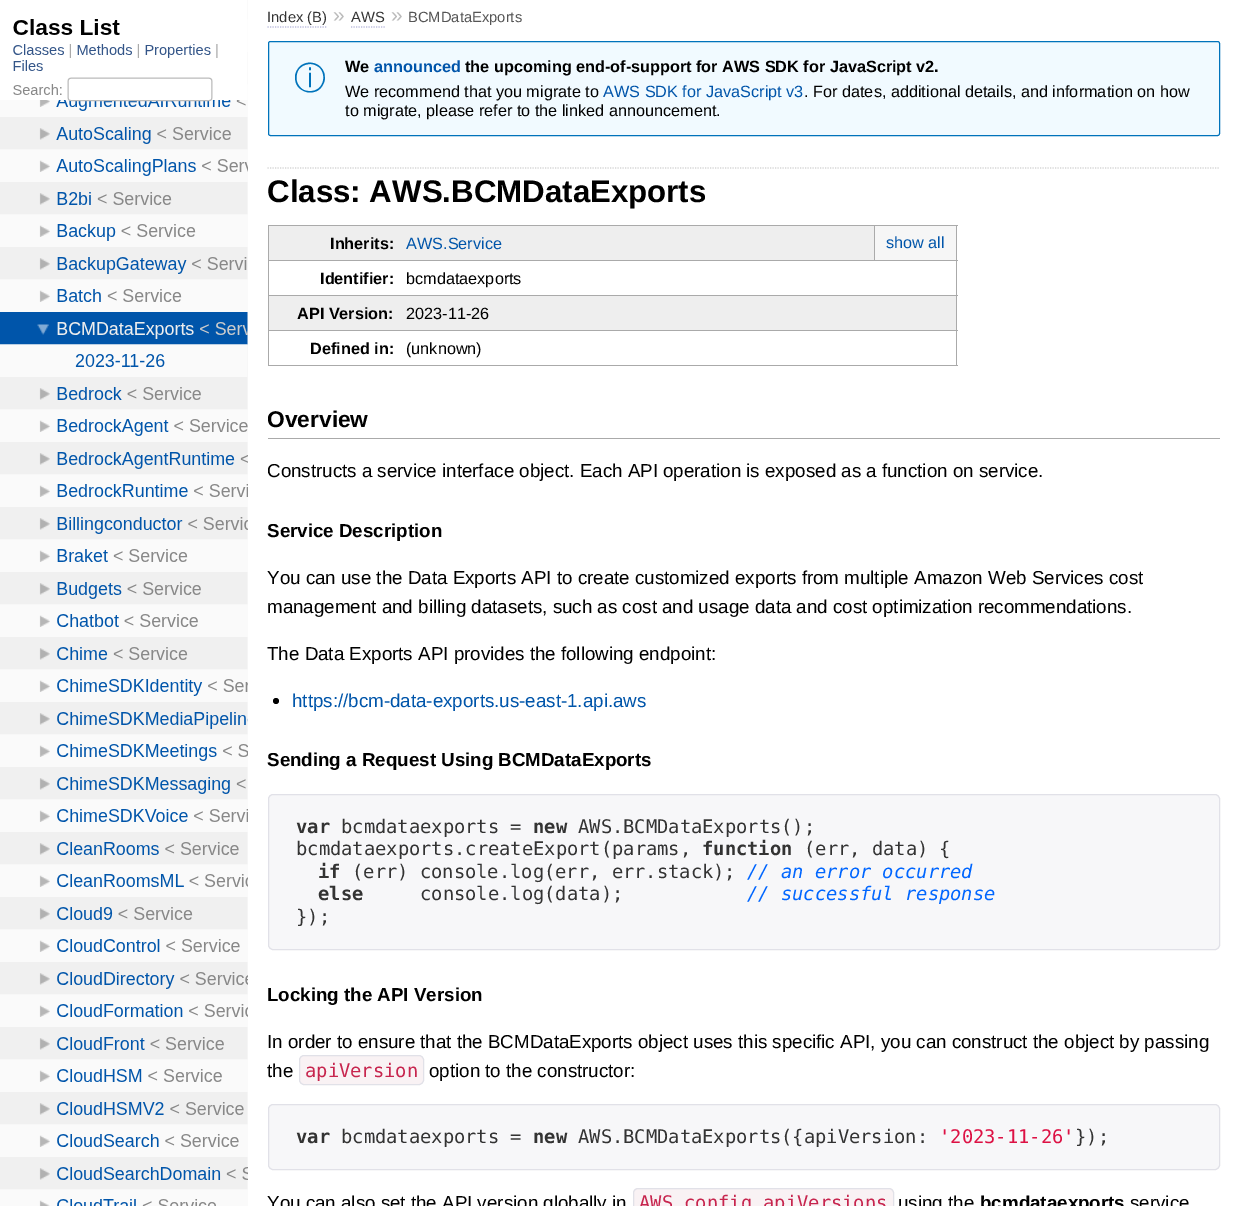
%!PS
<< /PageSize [1240 1206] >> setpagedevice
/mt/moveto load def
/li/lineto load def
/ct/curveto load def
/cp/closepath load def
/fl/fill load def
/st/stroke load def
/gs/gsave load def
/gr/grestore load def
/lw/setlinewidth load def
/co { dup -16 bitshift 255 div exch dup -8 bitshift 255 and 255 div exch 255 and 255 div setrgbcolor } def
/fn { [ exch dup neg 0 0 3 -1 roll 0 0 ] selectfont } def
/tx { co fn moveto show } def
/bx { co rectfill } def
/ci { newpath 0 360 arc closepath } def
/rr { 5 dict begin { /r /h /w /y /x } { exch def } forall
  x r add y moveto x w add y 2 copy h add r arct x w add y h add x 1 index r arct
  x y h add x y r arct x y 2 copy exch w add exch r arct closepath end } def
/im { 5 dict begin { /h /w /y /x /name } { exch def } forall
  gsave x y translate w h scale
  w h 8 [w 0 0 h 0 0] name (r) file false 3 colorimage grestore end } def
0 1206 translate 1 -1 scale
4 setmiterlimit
0 0 1240 1206 16#FFFFFF bx
(media/1.raw) 0 0 248 1206 im
16#BBBBDD co
1.2 lw
[1.25 1.25] 0 setdash
267.5 27 mt 327.5 27 li st
351 27 mt 385 27 li st
16#F1FAFF co
268.5 41.5 951 94 2 rr gs fl gr
16#0073BB co
1 lw
[] 0 setdash
st
16#D5D5D5 co
1.2 lw
[1.25 1.25] 0 setdash
267.5 168 mt 1220 168 li st
269 226 605 34 16#EEEEEE bx
268 225 690 1 16#AAAAAA bx
268 225 1 35 16#AAAAAA bx
268 260 690 1 16#AAAAAA bx
268 295 690 1 16#AAAAAA bx
268 330 690 1 16#AAAAAA bx
956 225 1 141 16#AAAAAA bx
875 226 81 34 16#F6F6F6 bx
874 226 1 34 16#AAAAAA bx
268 260 1 35 16#AAAAAA bx
269 296 687 34 16#EEEEEE bx
268 295 1 35 16#AAAAAA bx
268 365 138 1 16#AAAAAA bx
268 330 1 36 16#AAAAAA bx
406 365 552 1 16#AAAAAA bx
268 438 952 1 16#AAAAAA bx
16#000000 co
276 701 3 ci fl
16#F7F7F9 co
268.5 794.5 951 155 4.5 rr gs fl gr
16#E1E1E8 co
1 lw
[] 0 setdash
st
16#F9F2F4 co
299.5 1055.5 124 29 4.5 rr gs fl gr
16#E1E1E8 co
st
16#F7F7F9 co
268.5 1104.5 951 65 4.5 rr gs fl gr
16#E1E1E8 co
st
16#F9F2F4 co
638 1188 mt 889 1188 li 892 1188 894 1190 894 1193 ct 894 1206 li 633 1206 li 633 1193 li 633 1190 635 1188 638 1188 ct cp fl
16#E1E1E8 co
633.5 1188.5 260 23 4.5 rr st
(Index \(B\)) 267 22 /LiberationSans-Regular 14.75 16#333333 tx
(») 333 22 /LiberationSans-Regular 21 16#BBBBBB tx
(AWS) 351 22 /LiberationSans-Regular 14.75 16#333333 tx
(») 391 22 /LiberationSans-Regular 21 16#BBBBBB tx
(BCMDataExports) 408 22 /LiberationSans-Regular 14.75 16#555555 tx
(ⓘ) 294 89 /WenQuanYiZenHei-Medium 32 16#0073BB tx
(We) 345 72 /LiberationSans-Bold 16.25 16#000000 tx
(announced) 374 72 /LiberationSans-Bold 16.25 16#0055AA tx
(the upcoming end-of-support for AWS SDK for JavaScript v2.) 465 72 /LiberationSans-Bold 16.25 16#000000 tx
(We recommend that you migrate to) 345 97 /LiberationSans-Regular 16.25 16#000000 tx
(AWS SDK for JavaScript v3) 603 97 /LiberationSans-Regular 16.25 16#0055AA tx
(. For dates, additional details, and information on how) 804 97 /LiberationSans-Regular 16.25 16#000000 tx
(to migrate, please refer to the linked announcement.) 345 116 /LiberationSans-Regular 16.25 16#000000 tx
(Class: AWS.BCMDataExports) 267 202 /LiberationSans-Bold 31.25 16#000000 tx
(Inherits:) 330 249 /LiberationSans-Bold 16.25 16#000000 tx
(AWS.Service) 406 249 /LiberationSans-Regular 16.25 16#0055AA tx
(show all) 886 248 /LiberationSans-Regular 16.25 16#0055AA tx
(Identifier:) 320 284 /LiberationSans-Bold 16.25 16#000000 tx
(bcmdataexports) 406 284 /LiberationSans-Regular 16.25 16#000000 tx
(API Version:) 297 319 /LiberationSans-Bold 16.25 16#000000 tx
(2023-11-26) 406 319 /LiberationSans-Regular 16.25 16#000000 tx
(Defined in:) 310 354 /LiberationSans-Bold 16.25 16#000000 tx
(\(unknown\)) 406 354 /LiberationSans-Regular 16.25 16#000000 tx
(Overview) 267 427 /LiberationSans-Bold 22.75 16#000000 tx
(Constructs a service interface object. Each API operation is exposed as a function on service.) 267 477 /LiberationSans-Regular 18.75 16#000000 tx
(Service Description) 267 537 /LiberationSans-Bold 18.75 16#000000 tx
(You can use the Data Exports API to create customized exports from multiple Amazon Web Services cost) 267 584 /LiberationSans-Regular 18.75 16#000000 tx
(management and billing datasets, such as cost and usage data and cost optimization recommendations.) 267 613 /LiberationSans-Regular 18.75 16#000000 tx
(The Data Exports API provides the following endpoint:) 267 660 /LiberationSans-Regular 18.75 16#000000 tx
(https://bcm-data-exports.us-east-1.api.aws) 292 707 /LiberationSans-Regular 18.75 16#0055AA tx
(Sending a Request Using BCMDataExports) 267 766 /LiberationSans-Bold 18.75 16#000000 tx
(var) 296 833 /DejaVuSansMono-Bold 18.75 16#333333 tx
(bcmdataexports =) 341 833 /DejaVuSansMono-Regular 18.75 16#333333 tx
(new) 533 833 /DejaVuSansMono-Bold 18.75 16#333333 tx
(AWS.BCMDataExports\(\);) 578 833 /DejaVuSansMono-Regular 18.75 16#333333 tx
(bcmdataexports.createExport\(params,) 296 855 /DejaVuSansMono-Regular 18.75 16#333333 tx
(function) 702 855 /DejaVuSansMono-Bold 18.75 16#333333 tx
(\(err, data\) {) 804 855 /DejaVuSansMono-Regular 18.75 16#333333 tx
(if) 318 878 /DejaVuSansMono-Bold 18.75 16#333333 tx
(\(err\) console.log\(err, err.stack\);) 352 878 /DejaVuSansMono-Regular 18.75 16#333333 tx
(// an error occurred) 747 878 /DejaVuSansMono-Italic 18.75 16#0066FF tx
(else) 318 900 /DejaVuSansMono-Bold 18.75 16#333333 tx
(console.log\(data\);) 420 900 /DejaVuSansMono-Regular 18.75 16#333333 tx
(// successful response) 747 900 /DejaVuSansMono-Italic 18.75 16#0066FF tx
(}\);) 296 923 /DejaVuSansMono-Regular 18.75 16#333333 tx
(Locking the API Version) 267 1001 /LiberationSans-Bold 18.75 16#000000 tx
(In order to ensure that the BCMDataExports object uses this specific API, you can construct the object by passing) 267 1048 /LiberationSans-Regular 18.75 16#000000 tx
(the) 267 1077 /LiberationSans-Regular 18.75 16#000000 tx
(apiVersion) 305 1077 /DejaVuSansMono-Regular 18.75 16#C7254E tx
(option to the constructor:) 429 1077 /LiberationSans-Regular 18.75 16#000000 tx
(var) 296 1143 /DejaVuSansMono-Bold 18.75 16#333333 tx
(bcmdataexports =) 341 1143 /DejaVuSansMono-Regular 18.75 16#333333 tx
(new) 533 1143 /DejaVuSansMono-Bold 18.75 16#333333 tx
(AWS.BCMDataExports\({apiVersion:) 578 1143 /DejaVuSansMono-Regular 18.75 16#333333 tx
('2023-11-26') 939 1143 /DejaVuSansMono-Regular 18.75 16#DD1144 tx
(}\);) 1075 1143 /DejaVuSansMono-Regular 18.75 16#333333 tx
(You can also set the API version globally in) 267 1209 /LiberationSans-Regular 18.75 16#000000 tx
(AWS.config.apiVersions) 639 1209 /DejaVuSansMono-Regular 18.75 16#C7254E tx
(using the) 898 1209 /LiberationSans-Regular 18.75 16#000000 tx
(bcmdataexports) 980 1209 /LiberationSans-Bold 18.75 16#000000 tx
(service) 1130 1209 /LiberationSans-Regular 18.75 16#000000 tx
showpage
